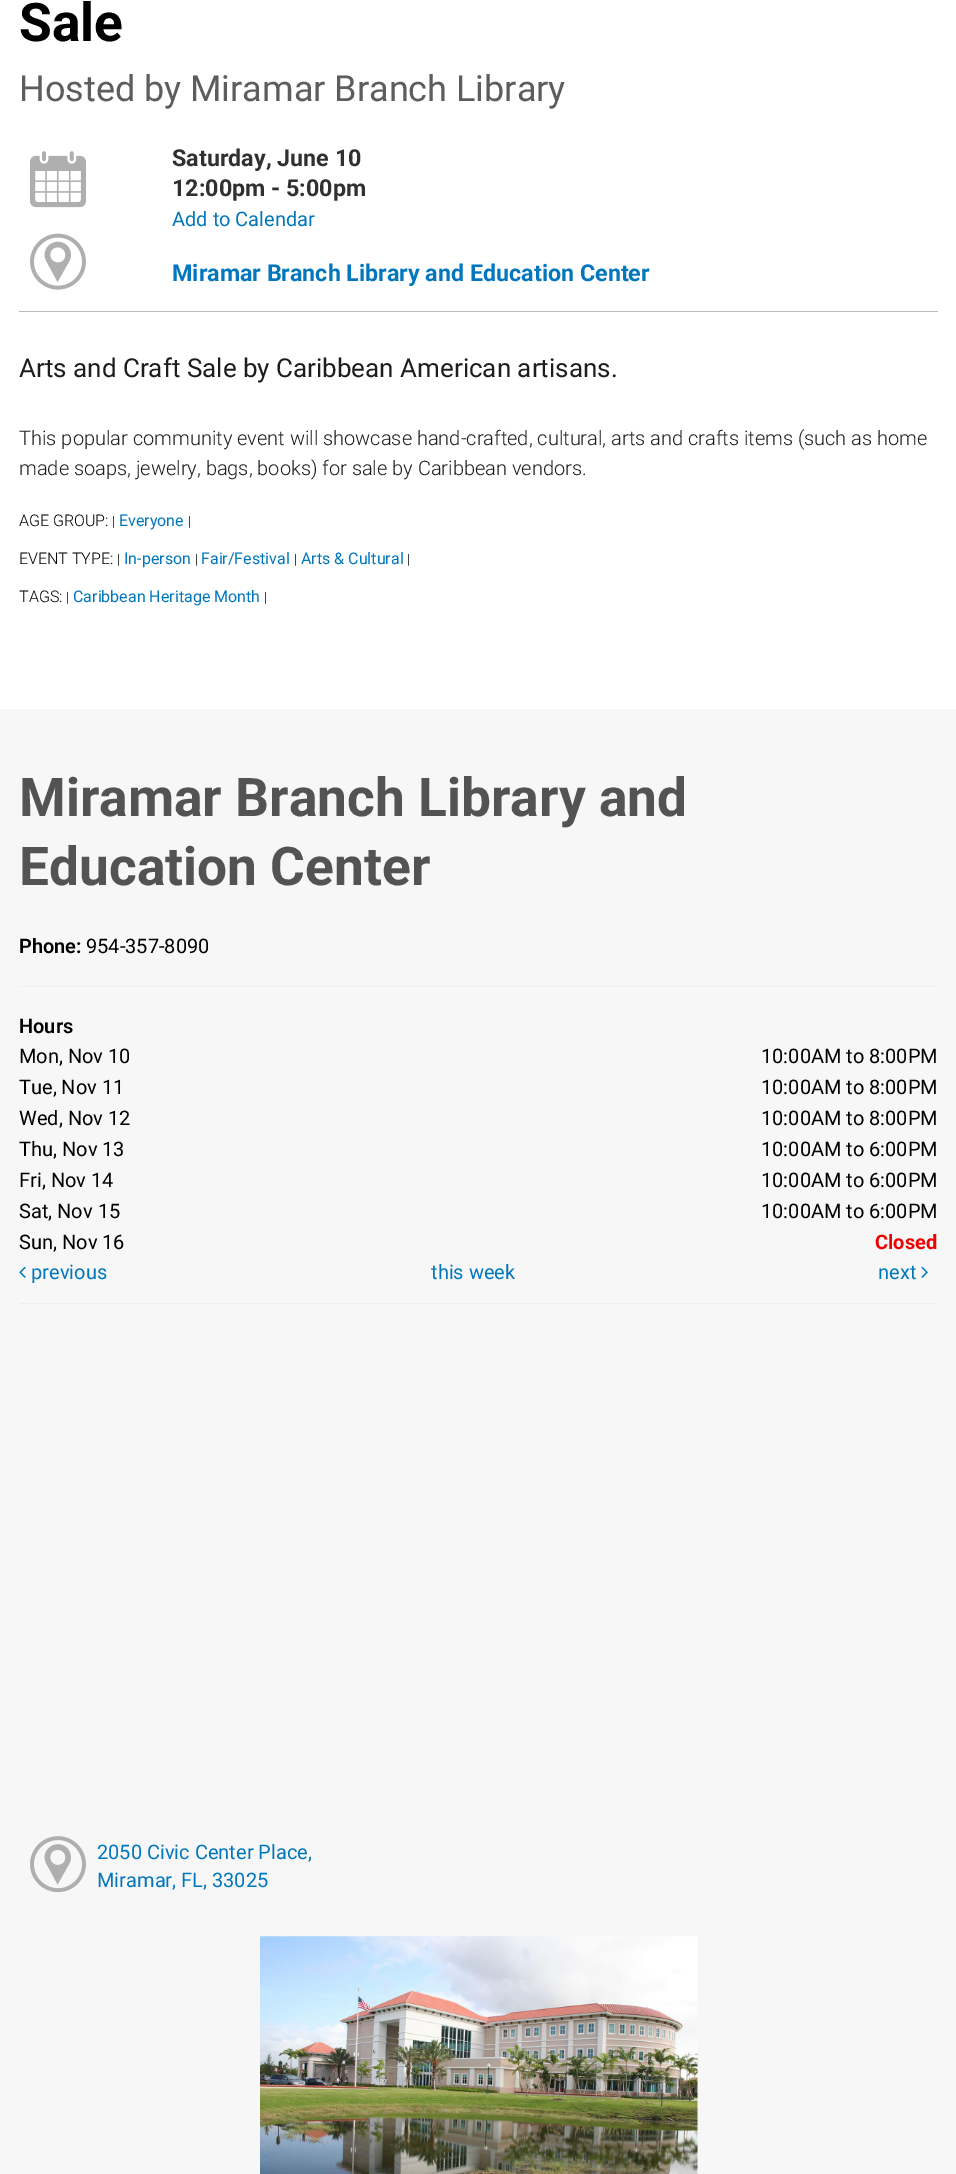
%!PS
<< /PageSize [956 2174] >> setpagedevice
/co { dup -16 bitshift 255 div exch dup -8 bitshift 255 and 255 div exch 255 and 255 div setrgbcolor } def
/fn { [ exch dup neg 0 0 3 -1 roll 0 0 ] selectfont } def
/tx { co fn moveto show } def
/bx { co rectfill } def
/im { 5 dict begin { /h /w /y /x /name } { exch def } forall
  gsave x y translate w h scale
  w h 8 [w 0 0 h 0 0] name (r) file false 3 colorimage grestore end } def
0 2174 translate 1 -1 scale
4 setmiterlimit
0 0 956 2174 16#FFFFFF bx
(media/1.raw) 30 151 56 57 im
(media/2.raw) 30 233 56 57 im
19 311 919 1 16#BBBBBB bx
0 709 956 1465 16#F7F7F7 bx
19 986 919 1 16#EEEEEE bx
(media/3.raw) 19 1266 7 12 im
(media/4.raw) 921 1266 7 12 im
19 1303 919 1 16#EEEEEE bx
(media/5.raw) 30 1836 56 57 im
(media/6.raw) 260 1936 438 238 im
(Sale) 19 41 /Roboto-Bold 53.3 16#000000 tx
(Hosted by Miramar Branch Library) 19 101 /Roboto-Regular 36 16#5D5D5D tx
(Saturday, June 10) 172 166 /Roboto-Bold 23.3 16#303030 tx
(12:00pm - 5:00pm) 172 196 /Roboto-Bold 23.3 16#303030 tx
(Add to Calendar) 172 226 /Roboto-Regular 20 16#0277BD tx
(Miramar Branch Library and Education Center) 172 281 /Roboto-Bold 23.3 16#0277BD tx
(Arts and Craft Sale by Caribbean American artisans.) 19 377 /Roboto-Regular 26 16#1D1D1D tx
(This popular community event will showcase hand-crafted, cultural, arts and crafts items \(such as home) 19 445 /Roboto-Light 20 16#1D1D1D tx
(made soaps, jewelry, bags, books\) for sale by Caribbean vendors.) 19 475 /Roboto-Light 20 16#1D1D1D tx
(AGE GROUP:) 19 526 /Roboto-Light 16 16#000000 tx
(|) 112 526 /Roboto-Light 14 16#000000 tx
(Everyone) 119 526 /Roboto-Regular 16 16#0277BD tx
(|) 188 526 /Roboto-Light 14 16#000000 tx
(EVENT TYPE:) 19 564 /Roboto-Light 16 16#000000 tx
(|) 117 564 /Roboto-Light 14 16#000000 tx
(In-person) 124 564 /Roboto-Regular 16 16#0277BD tx
(|) 195 564 /Roboto-Light 14 16#000000 tx
(Fair/Festival) 201 564 /Roboto-Regular 16 16#0277BD tx
(|) 294 564 /Roboto-Light 14 16#000000 tx
(Arts & Cultural) 301 564 /Roboto-Regular 16 16#0277BD tx
(|) 407 564 /Roboto-Light 14 16#000000 tx
(TAGS:) 19 602 /Roboto-Light 16 16#000000 tx
(|) 66 602 /Roboto-Light 14 16#000000 tx
(Caribbean Heritage Month) 73 602 /Roboto-Regular 16 16#0277BD tx
(|) 264 602 /Roboto-Light 14 16#000000 tx
(Miramar Branch Library and) 19 816 /Roboto-Bold 53.3 16#535353 tx
(Education Center) 19 885 /Roboto-Bold 53.3 16#535353 tx
(Phone:) 19 953 /Roboto-SemiBold 20 16#000000 tx
(954-357-8090) 86 953 /Roboto-Regular 20 16#000000 tx
(Hours) 19 1033 /Roboto-SemiBold 20 16#000000 tx
(Mon, Nov 10) 19 1063 /Roboto-Regular 20 16#000000 tx
(10:00AM to 8:00PM) 761 1063 /Roboto-Regular 20 16#000000 tx
(Tue, Nov 11) 19 1094 /Roboto-Regular 20 16#000000 tx
(10:00AM to 8:00PM) 761 1094 /Roboto-Regular 20 16#000000 tx
(Wed, Nov 12) 19 1125 /Roboto-Regular 20 16#000000 tx
(10:00AM to 8:00PM) 761 1125 /Roboto-Regular 20 16#000000 tx
(Thu, Nov 13) 19 1156 /Roboto-Regular 20 16#000000 tx
(10:00AM to 6:00PM) 761 1156 /Roboto-Regular 20 16#000000 tx
(Fri, Nov 14) 19 1187 /Roboto-Regular 20 16#000000 tx
(10:00AM to 6:00PM) 761 1187 /Roboto-Regular 20 16#000000 tx
(Sat, Nov 15) 19 1218 /Roboto-Regular 20 16#000000 tx
(10:00AM to 6:00PM) 761 1218 /Roboto-Regular 20 16#000000 tx
(Sun, Nov 16) 19 1249 /Roboto-Regular 20 16#000000 tx
(Closed) 875 1249 /Roboto-Bold 20 16#ED0202 tx
(previous) 31 1279 /Roboto-Regular 20 16#0277BD tx
(this week) 431 1279 /Roboto-Regular 20 16#0277BD tx
(next) 878 1279 /Roboto-Regular 20 16#0277BD tx
(2050 Civic Center Place,) 97 1859 /Roboto-Regular 20 16#0277BD tx
(Miramar, FL, 33025) 97 1887 /Roboto-Regular 20 16#0277BD tx
showpage
